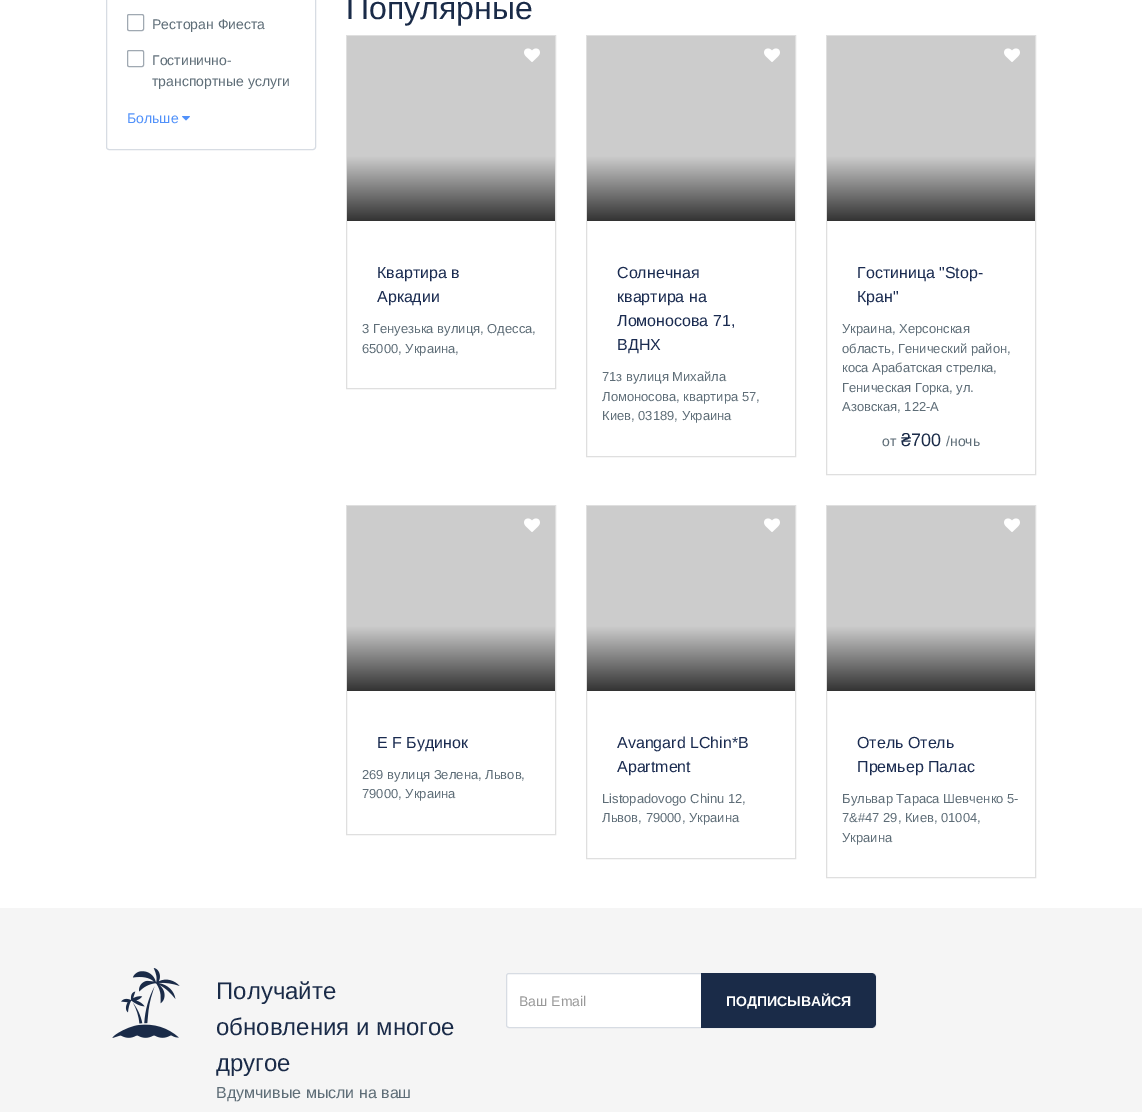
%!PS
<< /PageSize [1142 1112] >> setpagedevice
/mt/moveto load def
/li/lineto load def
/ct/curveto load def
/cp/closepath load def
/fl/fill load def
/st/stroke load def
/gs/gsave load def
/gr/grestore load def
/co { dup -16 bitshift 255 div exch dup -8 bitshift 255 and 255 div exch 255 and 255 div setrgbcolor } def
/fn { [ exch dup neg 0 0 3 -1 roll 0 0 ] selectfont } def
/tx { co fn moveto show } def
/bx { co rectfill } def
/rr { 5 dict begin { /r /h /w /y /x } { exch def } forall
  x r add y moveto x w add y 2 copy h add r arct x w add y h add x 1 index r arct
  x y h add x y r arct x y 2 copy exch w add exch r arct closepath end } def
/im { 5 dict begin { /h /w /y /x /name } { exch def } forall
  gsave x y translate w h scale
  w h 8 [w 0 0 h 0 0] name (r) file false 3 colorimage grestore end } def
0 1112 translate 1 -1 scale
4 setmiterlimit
0 0 1142 1112 16#FFFFFF bx
16#D7DCE3 co
106.5 -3.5 209 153 2.5 rr st
16#A0A9B2 co
127.5 14.5 16 16 1.5 rr st
127.5 50.5 16 16 1.5 rr st
(media/1.raw) 182 116 8 5 im
16#DFDFDF co
346.5 35.5 209 353 rectstroke
gs 347 36 mt 555 36 li 555 221 li 347 221 li cp clip newpath
<< /ShadingType 2 /ColorSpace /DeviceRGB /Coords [451 36 451 221] /Extend [true true] /Function << /FunctionType 3 /Domain [0 1] /Functions [<< /FunctionType 2 /Domain [0 1] /C0 [.8 .8 .8] /C1 [.8 .8 .8] /N 1 >> << /FunctionType 2 /Domain [0 1] /C0 [.8 .8 .8] /C1 [.2 .2 .2] /N 1 >>] /Bounds [.65] /Encode [0 1 0 1] >> >> shfill gr
(media/2.raw) 524 48 16 14 im
586.5 35.5 209 421 rectstroke
gs 587 36 mt 795 36 li 795 221 li 587 221 li cp clip newpath
<< /ShadingType 2 /ColorSpace /DeviceRGB /Coords [691 36 691 221] /Extend [true true] /Function << /FunctionType 3 /Domain [0 1] /Functions [<< /FunctionType 2 /Domain [0 1] /C0 [.8 .8 .8] /C1 [.8 .8 .8] /N 1 >> << /FunctionType 2 /Domain [0 1] /C0 [.8 .8 .8] /C1 [.2 .2 .2] /N 1 >>] /Bounds [.65] /Encode [0 1 0 1] >> >> shfill gr
(media/2.raw) 764 48 16 14 im
826.5 35.5 209 439 rectstroke
gs 827 36 mt 1035 36 li 1035 221 li 827 221 li cp clip newpath
<< /ShadingType 2 /ColorSpace /DeviceRGB /Coords [931 36 931 221] /Extend [true true] /Function << /FunctionType 3 /Domain [0 1] /Functions [<< /FunctionType 2 /Domain [0 1] /C0 [.8 .8 .8] /C1 [.8 .8 .8] /N 1 >> << /FunctionType 2 /Domain [0 1] /C0 [.8 .8 .8] /C1 [.2 .2 .2] /N 1 >>] /Bounds [.65] /Encode [0 1 0 1] >> >> shfill gr
(media/2.raw) 1004 48 16 14 im
346.5 505.5 209 329 rectstroke
gs 347 506 mt 555 506 li 555 691 li 347 691 li cp clip newpath
<< /ShadingType 2 /ColorSpace /DeviceRGB /Coords [451 506 451 691] /Extend [true true] /Function << /FunctionType 3 /Domain [0 1] /Functions [<< /FunctionType 2 /Domain [0 1] /C0 [.8 .8 .8] /C1 [.8 .8 .8] /N 1 >> << /FunctionType 2 /Domain [0 1] /C0 [.8 .8 .8] /C1 [.2 .2 .2] /N 1 >>] /Bounds [.65] /Encode [0 1 0 1] >> >> shfill gr
(media/2.raw) 524 518 16 14 im
586.5 505.5 209 353 rectstroke
gs 587 506 mt 795 506 li 795 691 li 587 691 li cp clip newpath
<< /ShadingType 2 /ColorSpace /DeviceRGB /Coords [691 506 691 691] /Extend [true true] /Function << /FunctionType 3 /Domain [0 1] /Functions [<< /FunctionType 2 /Domain [0 1] /C0 [.8 .8 .8] /C1 [.8 .8 .8] /N 1 >> << /FunctionType 2 /Domain [0 1] /C0 [.8 .8 .8] /C1 [.2 .2 .2] /N 1 >>] /Bounds [.65] /Encode [0 1 0 1] >> >> shfill gr
(media/2.raw) 764 518 16 14 im
826.5 505.5 209 372 rectstroke
gs 827 506 mt 1035 506 li 1035 691 li 827 691 li cp clip newpath
<< /ShadingType 2 /ColorSpace /DeviceRGB /Coords [931 506 931 691] /Extend [true true] /Function << /FunctionType 3 /Domain [0 1] /Functions [<< /FunctionType 2 /Domain [0 1] /C0 [.8 .8 .8] /C1 [.8 .8 .8] /N 1 >> << /FunctionType 2 /Domain [0 1] /C0 [.8 .8 .8] /C1 [.2 .2 .2] /N 1 >>] /Bounds [.65] /Encode [0 1 0 1] >> >> shfill gr
(media/2.raw) 1004 518 16 14 im
0 908 1142 204 16#F5F5F5 bx
(media/3.raw) 112 968 68 70 im
16#FFFFFF co
506.5 973.5 369 54 2.5 rr gs fl gr
16#D7DCE3 co
st
16#1A2B48 co
701 973 mt 871 973 li 874 973 876 975 876 978 ct 876 1023 li 876 1026 874 1028 871 1028 ct 701 1028 li cp fl
(Ресторан Фиеста) 152 29 /LiberationSans-Regular 14 16#5E6D77 tx
(Гостинично-) 152 65 /LiberationSans-Regular 14 16#5E6D77 tx
(транспортные услуги) 152 86 /LiberationSans-Regular 14 16#5E6D77 tx
(Больше) 127 123 /LiberationSans-Regular 14 16#5191FA tx
(Популярные) 346 19 /LiberationSans-Regular 32 16#1A2B48 tx
(Квартира в) 377 278 /LiberationSans-Regular 16 16#1A2B50 tx
(Аркадии) 377 302 /LiberationSans-Regular 16 16#1A2B50 tx
(3 Генуезька вулиця, Одесса,) 362 333 /LiberationSans-Regular 13 16#5E6D77 tx
(65000, Украина,) 362 353 /LiberationSans-Regular 13 16#5E6D77 tx
(Солнечная) 617 278 /LiberationSans-Regular 16 16#1A2B50 tx
(квартира на) 617 302 /LiberationSans-Regular 16 16#1A2B50 tx
(Ломоносова 71,) 617 326 /LiberationSans-Regular 16 16#1A2B50 tx
(ВДНХ) 617 350 /LiberationSans-Regular 16 16#1A2B50 tx
(71з вулиця Михайла) 602 381 /LiberationSans-Regular 13 16#5E6D77 tx
(Ломоносова, квартира 57,) 602 401 /LiberationSans-Regular 13 16#5E6D77 tx
(Киев, 03189, Украина) 602 420 /LiberationSans-Regular 13 16#5E6D77 tx
(Гостиница "Stop-) 857 278 /LiberationSans-Regular 16 16#1A2B50 tx
(Кран") 857 302 /LiberationSans-Regular 16 16#1A2B50 tx
(Украина, Херсонская) 842 333 /LiberationSans-Regular 13 16#5E6D77 tx
(область, Генический район,) 842 353 /LiberationSans-Regular 13 16#5E6D77 tx
(коса Арабатская стрелка,) 842 372 /LiberationSans-Regular 13 16#5E6D77 tx
(Геническая Горка, ул.) 842 392 /LiberationSans-Regular 13 16#5E6D77 tx
(Азовская, 122-А) 842 411 /LiberationSans-Regular 13 16#5E6D77 tx
(от) 882 446 /LiberationSans-Regular 14 16#5E6D77 tx
(₴700) 901 446 /LiberationSans-Regular 18 16#1A2B48 tx
(/ночь) 946 446 /LiberationSans-Regular 14 16#5E6D77 tx
(E F Будинок) 377 748 /LiberationSans-Regular 16 16#1A2B50 tx
(269 вулиця Зелена, Львов,) 362 779 /LiberationSans-Regular 13 16#5E6D77 tx
(79000, Украина) 362 798 /LiberationSans-Regular 13 16#5E6D77 tx
(Avangard LChin*B) 617 748 /LiberationSans-Regular 16 16#1A2B50 tx
(Apartment) 617 772 /LiberationSans-Regular 16 16#1A2B50 tx
(Listopadovogo Chinu 12,) 602 803 /LiberationSans-Regular 13 16#5E6D77 tx
(Львов, 79000, Украина) 602 822 /LiberationSans-Regular 13 16#5E6D77 tx
(Отель Отель) 857 748 /LiberationSans-Regular 16 16#1A2B50 tx
(Премьер Палас) 857 772 /LiberationSans-Regular 16 16#1A2B50 tx
(Бульвар Тараса Шевченко 5-) 842 803 /LiberationSans-Regular 13 16#5E6D77 tx
(7&#47 29, Киев, 01004,) 842 822 /LiberationSans-Regular 13 16#5E6D77 tx
(Украина) 842 842 /LiberationSans-Regular 13 16#5E6D77 tx
(Получайте) 216 999 /LiberationSans-Regular 24 16#1A2B48 tx
(обновления и многое) 216 1035 /LiberationSans-Regular 24 16#1A2B48 tx
(другое) 216 1071 /LiberationSans-Regular 24 16#1A2B48 tx
(Вдумчивые мысли на ваш) 216 1098 /LiberationSans-Regular 16 16#5E6D77 tx
(Ваш Email) 519 1006 /LiberationSans-Regular 14 16#999999 tx
(ПОДПИСЫВАЙСЯ) 726 1006 /LiberationSans-Bold 14 16#FFFFFF tx
showpage
